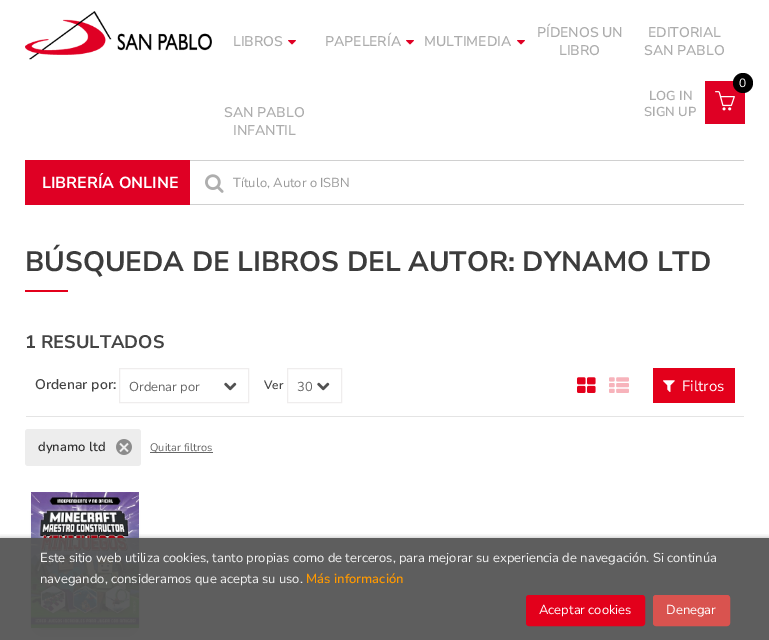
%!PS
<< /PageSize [769 640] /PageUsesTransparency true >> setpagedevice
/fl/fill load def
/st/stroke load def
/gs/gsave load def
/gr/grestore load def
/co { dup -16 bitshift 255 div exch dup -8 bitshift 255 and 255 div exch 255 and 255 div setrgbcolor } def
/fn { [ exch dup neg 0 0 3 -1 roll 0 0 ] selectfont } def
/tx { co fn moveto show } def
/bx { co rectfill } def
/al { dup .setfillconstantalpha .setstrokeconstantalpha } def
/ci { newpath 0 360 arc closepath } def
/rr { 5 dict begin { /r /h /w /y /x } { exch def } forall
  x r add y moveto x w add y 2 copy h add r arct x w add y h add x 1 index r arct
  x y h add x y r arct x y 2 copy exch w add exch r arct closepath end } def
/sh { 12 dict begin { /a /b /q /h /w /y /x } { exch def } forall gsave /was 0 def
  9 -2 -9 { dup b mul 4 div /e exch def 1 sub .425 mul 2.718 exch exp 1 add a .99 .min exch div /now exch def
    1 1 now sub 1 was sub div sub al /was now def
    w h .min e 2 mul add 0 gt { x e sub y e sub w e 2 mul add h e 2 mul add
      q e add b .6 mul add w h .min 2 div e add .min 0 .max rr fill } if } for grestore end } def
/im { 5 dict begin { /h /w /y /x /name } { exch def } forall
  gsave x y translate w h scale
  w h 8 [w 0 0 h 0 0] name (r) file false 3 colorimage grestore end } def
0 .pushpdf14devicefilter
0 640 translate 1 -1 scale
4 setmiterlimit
0 0 769 640 16#FFFFFF bx
(media/1.raw) 25 11 187 49 im
(media/2.raw) 288 40 8 5 im
(media/2.raw) 406 40 8 5 im
(media/2.raw) 517 40 8 5 im
705 81 40 43 16#DF0024 bx
(media/3.raw) 715 91 20 20 im
16#000000 co
743 83 10 ci fl
25 160 165 45 16#DF0024 bx
(media/4.raw) 205 174 19 19 im
190 160 554 1 16#D0D0D0 bx
190 204 554 1 16#D0D0D0 bx
25 290 43 2 16#E3001B bx
26 416 718 1 16#E4E4E4 bx
(media/5.raw) 224 382 13 9 im
16#EFEDED co
119.5 368.5 129 34 rectstroke
(media/5.raw) 317 382 13 9 im
287.5 368.5 54 34 rectstroke
(media/6.raw) 577 377 19 16 im
(media/7.raw) 609 377 20 16 im
653 368 82 35 16#E3001B bx
(media/8.raw) 663 380 12 12 im
16#EDEDED co
25 429 116 37 3 rr fl
(media/9.raw) 116 439 16 16 im
150 452 63 1 16#666666 bx
16#000000 co
41 510 88 116 0 5 .5 sh
(media/10.raw) 31 492 108 136 im
gs
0 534 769 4 rectclip
0 538 769 102 0 2.5 .3 sh
gr
0.95 al
0 538 769 102 16#555555 bx
1 al
16#E3001B co
526.5 595.5 118 30 2.5 rr gs fl gr
st
16#D9534F co
653.5 595.5 76 30 2.5 rr gs fl gr
st
(LIBROS) 233 46 /NunitoSans-SemiBold 14 16#ACACAC tx
(PAPELERÍA) 325 46 /NunitoSans-SemiBold 14 16#ACACAC tx
(MULTIMEDIA) 424 46 /NunitoSans-SemiBold 14 16#ACACAC tx
(PÍDENOS UN) 537 37 /NunitoSans-SemiBold 14 16#ACACAC tx
(LIBRO) 559 55 /NunitoSans-SemiBold 14 16#ACACAC tx
(EDITORIAL) 648 37 /NunitoSans-SemiBold 14 16#ACACAC tx
(SAN PABLO) 644 55 /NunitoSans-SemiBold 14 16#ACACAC tx
(SAN PABLO) 224 117 /NunitoSans-SemiBold 14 16#ACACAC tx
(INFANTIL) 233 135 /NunitoSans-SemiBold 14 16#ACACAC tx
(0) 739 87 /NunitoSans-Regular 12 16#FFFFFF tx
(LOG IN) 649 100 /NunitoSans-SemiBold 13 16#ACACAC tx
(SIGN UP) 644 116 /NunitoSans-SemiBold 13 16#ACACAC tx
(LIBRERÍA ONLINE) 42 188 /NunitoSans-Bold 16 16#FFFFFF tx
(Título, Autor o ISBN) 233 187 /NunitoSans-Regular 13 16#999999 tx
(BÚSQUEDA DE LIBROS DEL AUTOR: DYNAMO LTD) 25 271 /NunitoSans-Bold 28 16#3C3C3C tx
(1 RESULTADOS) 25 348 /NunitoSans-Bold 18.25 16#444444 tx
(Ordenar por:) 35 389 /NunitoSans-SemiBold 14 16#444444 tx
(Ordenar por) 129 391 /NunitoSans-Regular 13 16#666666 tx
(Ver) 264 389 /NunitoSans-SemiBold 12 16#444444 tx
(30) 297 391 /NunitoSans-Regular 13 16#666666 tx
(Filtros) 682 391 /NunitoSans-Regular 15 16#FFFFFF tx
(dynamo ltd) 38 451 /NunitoSans-SemiBold 13 16#323232 tx
(Quitar filtros) 150 451 /NunitoSans-Regular 11 16#666666 tx
(Este sitio web utiliza cookies, tanto propias como de terceros, para mejorar su experiencia de navegación. Si continúa) 40 562 /NunitoSans-Regular 13 16#F2F2F2 tx
(navegando, consideramos que acepta su uso.) 40 583 /NunitoSans-Regular 13 16#F2F2F2 tx
(Más información) 306 583 /NunitoSans-SemiBold 13 16#FF9900 tx
(Aceptar cookies) 539 614 /NunitoSans-Regular 13 16#FFFFFF tx
(Denegar) 666 614 /NunitoSans-Regular 13 16#FFFFFF tx
.poppdf14devicefilter showpage
